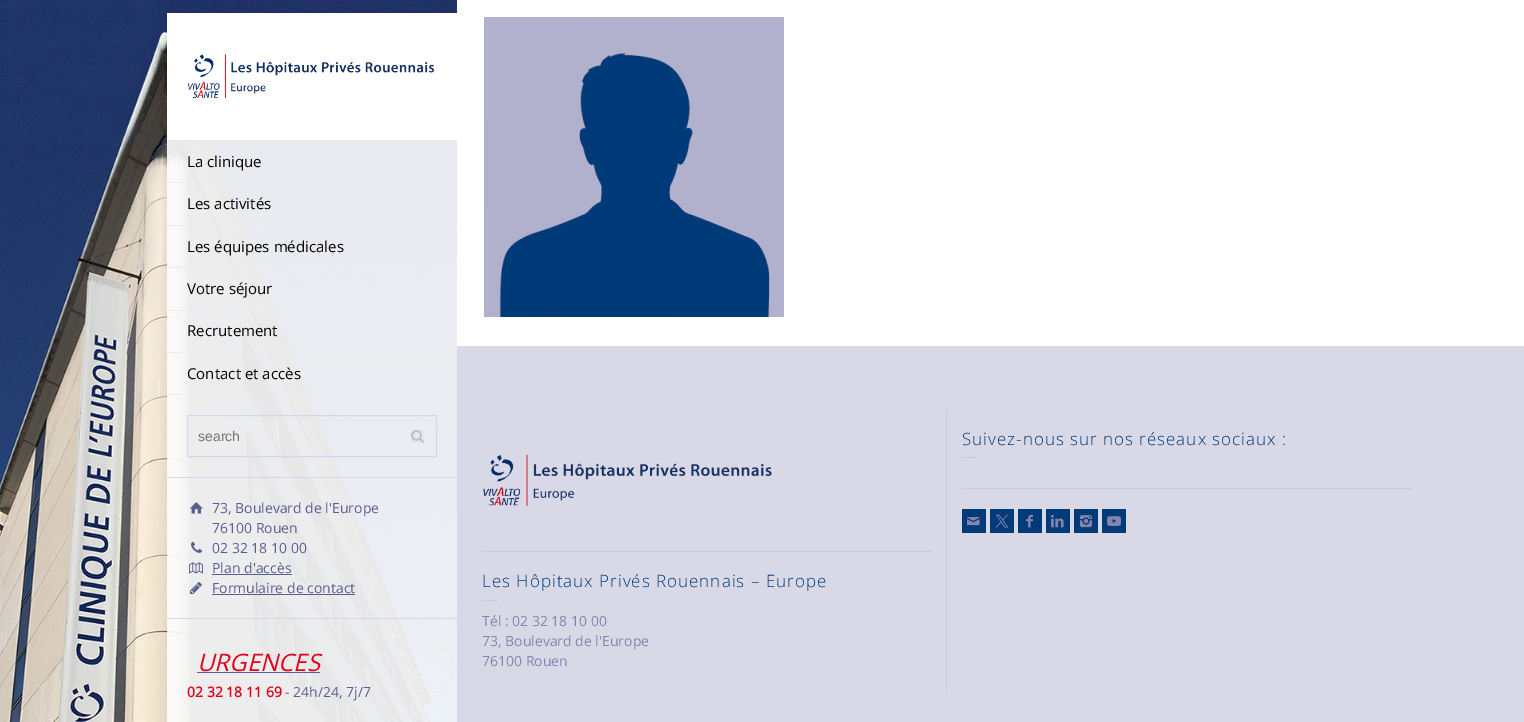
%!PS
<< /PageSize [1524 722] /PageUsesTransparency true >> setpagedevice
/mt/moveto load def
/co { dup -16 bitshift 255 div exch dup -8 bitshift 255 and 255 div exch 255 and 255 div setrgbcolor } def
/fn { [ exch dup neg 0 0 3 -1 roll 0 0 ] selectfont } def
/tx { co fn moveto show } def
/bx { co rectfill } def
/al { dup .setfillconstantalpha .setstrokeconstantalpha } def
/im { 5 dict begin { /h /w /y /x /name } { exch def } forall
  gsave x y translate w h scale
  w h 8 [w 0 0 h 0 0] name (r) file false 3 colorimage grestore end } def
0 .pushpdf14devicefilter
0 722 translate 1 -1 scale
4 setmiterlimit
0 0 1524 722 16#D9D8E6 bx
(media/1.raw) 0 0 457 722 im
167 13 290 127 16#FFFFFF bx
167 140 290 1 16#E6E6E6 bx
(media/2.raw) 188 54 246 45 im
0.9 al
167 141 290 41 16#FFFFFF bx
1 al
167 182 290 1 16#ECECEC bx
0.9 al
167 183 290 42 16#FFFFFF bx
1 al
167 225 290 1 16#ECECEC bx
0.9 al
167 226 290 41 16#FFFFFF bx
1 al
167 267 290 1 16#ECECEC bx
0.9 al
167 268 290 42 16#FFFFFF bx
1 al
167 310 290 1 16#ECECEC bx
0.9 al
167 311 290 41 16#FFFFFF bx
1 al
167 352 290 1 16#ECECEC bx
0.9 al
167 353 290 41 16#FFFFFF bx
1 al
167 394 290 1 16#ECECEC bx
0.9 al
167 395 290 82 16#FFFFFF bx
1 al
167 477 290 1 16#D6D5EC bx
187.5 415.5 249 41 rectstroke
(media/3.raw) 411 430 13 13 im
0.9 al
167 478 290 244 16#FFFFFF bx
1 al
(media/4.raw) 190 502 13 12 im
(media/5.raw) 191 541 11 12 im
(media/6.raw) 189 562 14 12 im
212 574 80 1 16#595D92 bx
(media/7.raw) 190 582 12 12 im
212 594 143 1 16#595D92 bx
167 618 290 1 16#D6D5EC bx
197 672 123 1 16#595D92 bx
457 0 1067 346 16#FFFFFF bx
(media/8.raw) 484 17 300 300 im
946 410 1 281 16#C9C8DC bx
962 457 15 1 16#C9C8DC bx
962 488 450 1 16#C9C8DC bx
962 509 24 24 16#003B79 bx
(media/9.raw) 967 517 13 9 im
990 509 24 24 16#003B79 bx
(media/10.raw) 995 514 14 14 im
1018 509 24 24 16#003B79 bx
(media/11.raw) 1026 514 7 14 im
1046 509 24 24 16#003B79 bx
(media/12.raw) 1051 514 13 14 im
1074 509 24 24 16#003B79 bx
(media/13.raw) 1080 515 13 13 im
1102 509 24 24 16#003B79 bx
(media/14.raw) 1107 516 14 10 im
(media/15.raw) 483 454 289 52 im
482 551 450 1 16#C9C8DC bx
482 600 15 1 16#C9C8DC bx
(La clinique) 187 167 /OpenSans-Regular 15 16#000000 tx
(Les activités) 187 209 /OpenSans-Regular 15 16#000000 tx
(Les équipes médicales) 187 252 /OpenSans-Regular 15 16#000000 tx
(Votre séjour) 187 294 /OpenSans-Regular 15 16#000000 tx
(Recrutement) 187 336 /OpenSans-Regular 15 16#000000 tx
(Contact et accès) 187 379 /OpenSans-Regular 15 16#000000 tx
(search) 198 441 /LiberationSans-Regular 14 16#757575 tx
(73, Boulevard de l'Europe) 212 513 /OpenSans-Regular 14 16#595D92 tx
(76100 Rouen) 212 533 /OpenSans-Regular 14 16#595D92 tx
(02 32 18 10 00) 212 553 /OpenSans-Regular 14 16#595D92 tx
(Plan d'accès) 212 573 /OpenSans-Regular 14 16#595D92 tx
(Formulaire de contact) 212 593 /OpenSans-Regular 14 16#595D92 tx
(URGENCES) 197 671 /OpenSans-Italic 24 16#E2001A tx
(02 32 18 11 69) 187 697 /OpenSans-Bold 14 16#E2001A tx
(- 24h/24, 7j/7) 285 697 /OpenSans-Regular 14 16#595D92 tx
/OpenSans-Light 17 fn
16#003B79 co
962 445 mt 1 0 (Suivez-nous sur nos réseaux sociaux :) ashow
482 587 mt 1 0 (Les Hôpitaux Privés Rouennais – Europe) ashow
(Tél : 02 32 18 10 00) 482 626 /OpenSans-Regular 14 16#8484AD tx
(73, Boulevard de l'Europe) 482 646 /OpenSans-Regular 14 16#8484AD tx
(76100 Rouen) 482 666 /OpenSans-Regular 14 16#8484AD tx
.poppdf14devicefilter showpage
